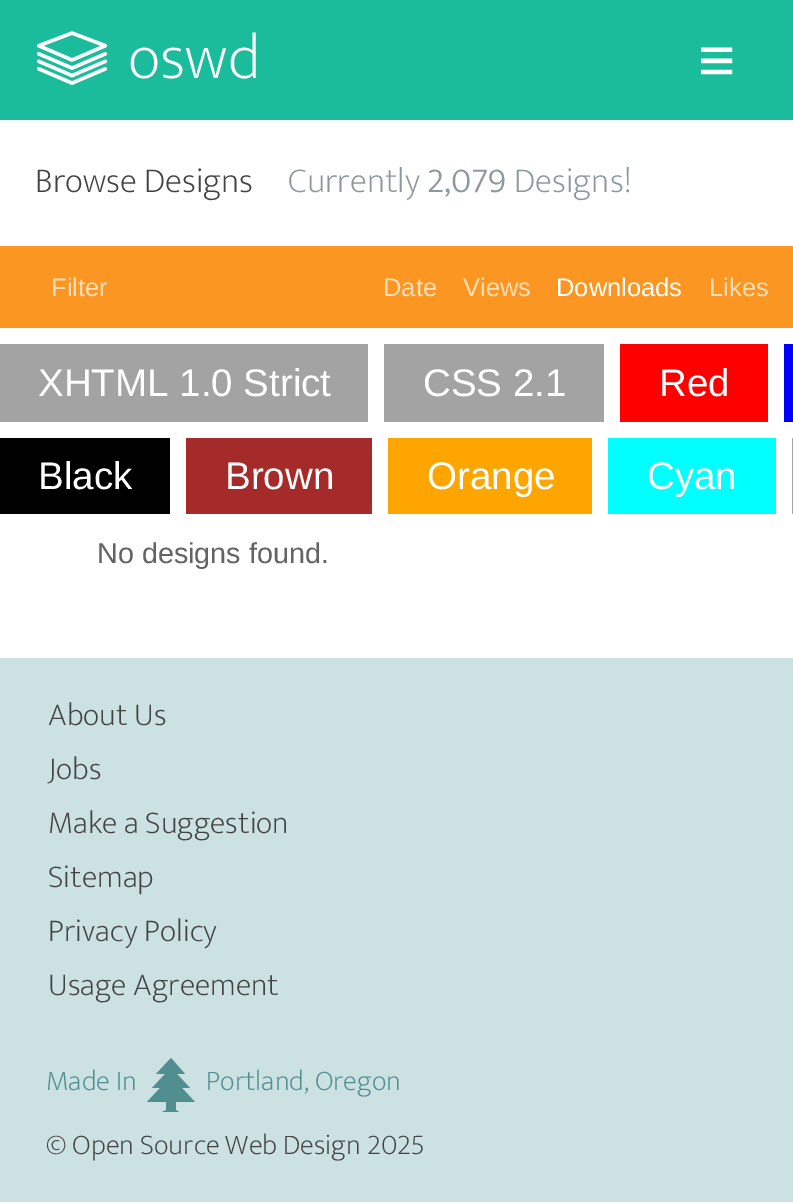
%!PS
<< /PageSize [793 1204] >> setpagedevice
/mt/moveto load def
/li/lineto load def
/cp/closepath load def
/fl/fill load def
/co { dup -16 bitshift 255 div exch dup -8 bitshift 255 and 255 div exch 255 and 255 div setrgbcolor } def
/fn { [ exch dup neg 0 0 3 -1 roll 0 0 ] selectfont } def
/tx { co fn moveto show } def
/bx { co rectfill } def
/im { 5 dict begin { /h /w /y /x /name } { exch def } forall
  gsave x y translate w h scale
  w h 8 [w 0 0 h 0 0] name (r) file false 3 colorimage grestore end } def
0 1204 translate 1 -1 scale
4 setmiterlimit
0 0 793 1204 16#FFFFFF bx
0 0 793 120 16#1ABC9C bx
(media/1.raw) 36 31 72 55 im
0 246 793 82 16#FB9622 bx
0 344 368 78 16#A3A3A3 bx
384 344 220 78 16#A3A3A3 bx
620 344 148 78 16#FF0000 bx
784 344 9 78 16#0000FF bx
0 438 170 76 16#000000 bx
186 438 186 76 16#A52A2A bx
388 438 204 76 16#FFA500 bx
608 438 168 76 16#00FFFF bx
792 438 1 76 16#A3A3A3 bx
0 658 793 544 16#CBE1E2 bx
16#518E90 co
147 1102 mt 166 1102 li 166 1110 li 162 1112 li 179 1112 li 176 1110 li 176 1102 li 195 1102 li 182 1088 li 190 1088 li 177 1074 li 185 1074 li 171 1058 li 156 1074 li 165 1074 li 152 1088 li 160 1088 li cp fl
(oswd) 128 78 /EkMukta-Light 64 16#FFFFFF tx
(≡) 698 82 /LiberationSans-Regular 64 16#FFFFFF tx
(Browse Designs) 35 192 /EkMukta-Light 35.25 16#434343 tx
(Currently) 288 192 /EkMukta-Light 35.25 16#8C9899 tx
(2,079) 427 192 /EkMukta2-Light 35.25 16#8C9899 tx
(Designs!) 514 192 /EkMukta-Light 35.25 16#8C9899 tx
(Filter) 51 296 /LiberationSans-Regular 25.5 16#FEDDB8 tx
(Date) 383 296 /LiberationSans-Regular 25.5 16#FEDDB8 tx
(Views) 463 296 /LiberationSans-Regular 25.5 16#FEDDB8 tx
(Downloads) 556 296 /LiberationSans-Regular 25.5 16#FFFFFF tx
(Likes) 709 296 /LiberationSans-Regular 25.5 16#FEDDB8 tx
(XHTML 1.0 Strict) 38 396 /LiberationSans-Regular 38.5 16#FFFFFF tx
(CSS 2.1) 423 396 /LiberationSans-Regular 38.5 16#FFFFFF tx
(Red) 659 396 /LiberationSans-Regular 38.5 16#FFFFFF tx
(Black) 38 489 /LiberationSans-Regular 38.5 16#FFFFFF tx
(Brown) 225 489 /LiberationSans-Regular 38.5 16#FFFFFF tx
(Orange) 427 489 /LiberationSans-Regular 38.5 16#FFFFFF tx
(Cyan) 647 489 /LiberationSans-Regular 38.5 16#FFFFFF tx
(No designs found.) 97 563 /LiberationSans-Regular 28.75 16#636363 tx
(About Us) 48 725 /EkMukta-Light 32 16#434343 tx
(Jobs) 48 779 /EkMukta-Light 32 16#434343 tx
(Make a Suggestion) 48 833 /EkMukta-Light 32 16#434343 tx
(Sitemap) 48 887 /EkMukta-Light 32 16#434343 tx
(Privacy Policy) 48 941 /EkMukta-Light 32 16#434343 tx
(Usage Agreement) 48 995 /EkMukta-Light 32 16#434343 tx
(Made In) 46 1090 /EkMukta-Light 28.75 16#518E90 tx
(Portland, Oregon) 206 1090 /EkMukta-Light 28.75 16#518E90 tx
(© Open Source Web Design 2025) 46 1154 /EkMukta-Light 28.75 16#434343 tx
showpage
